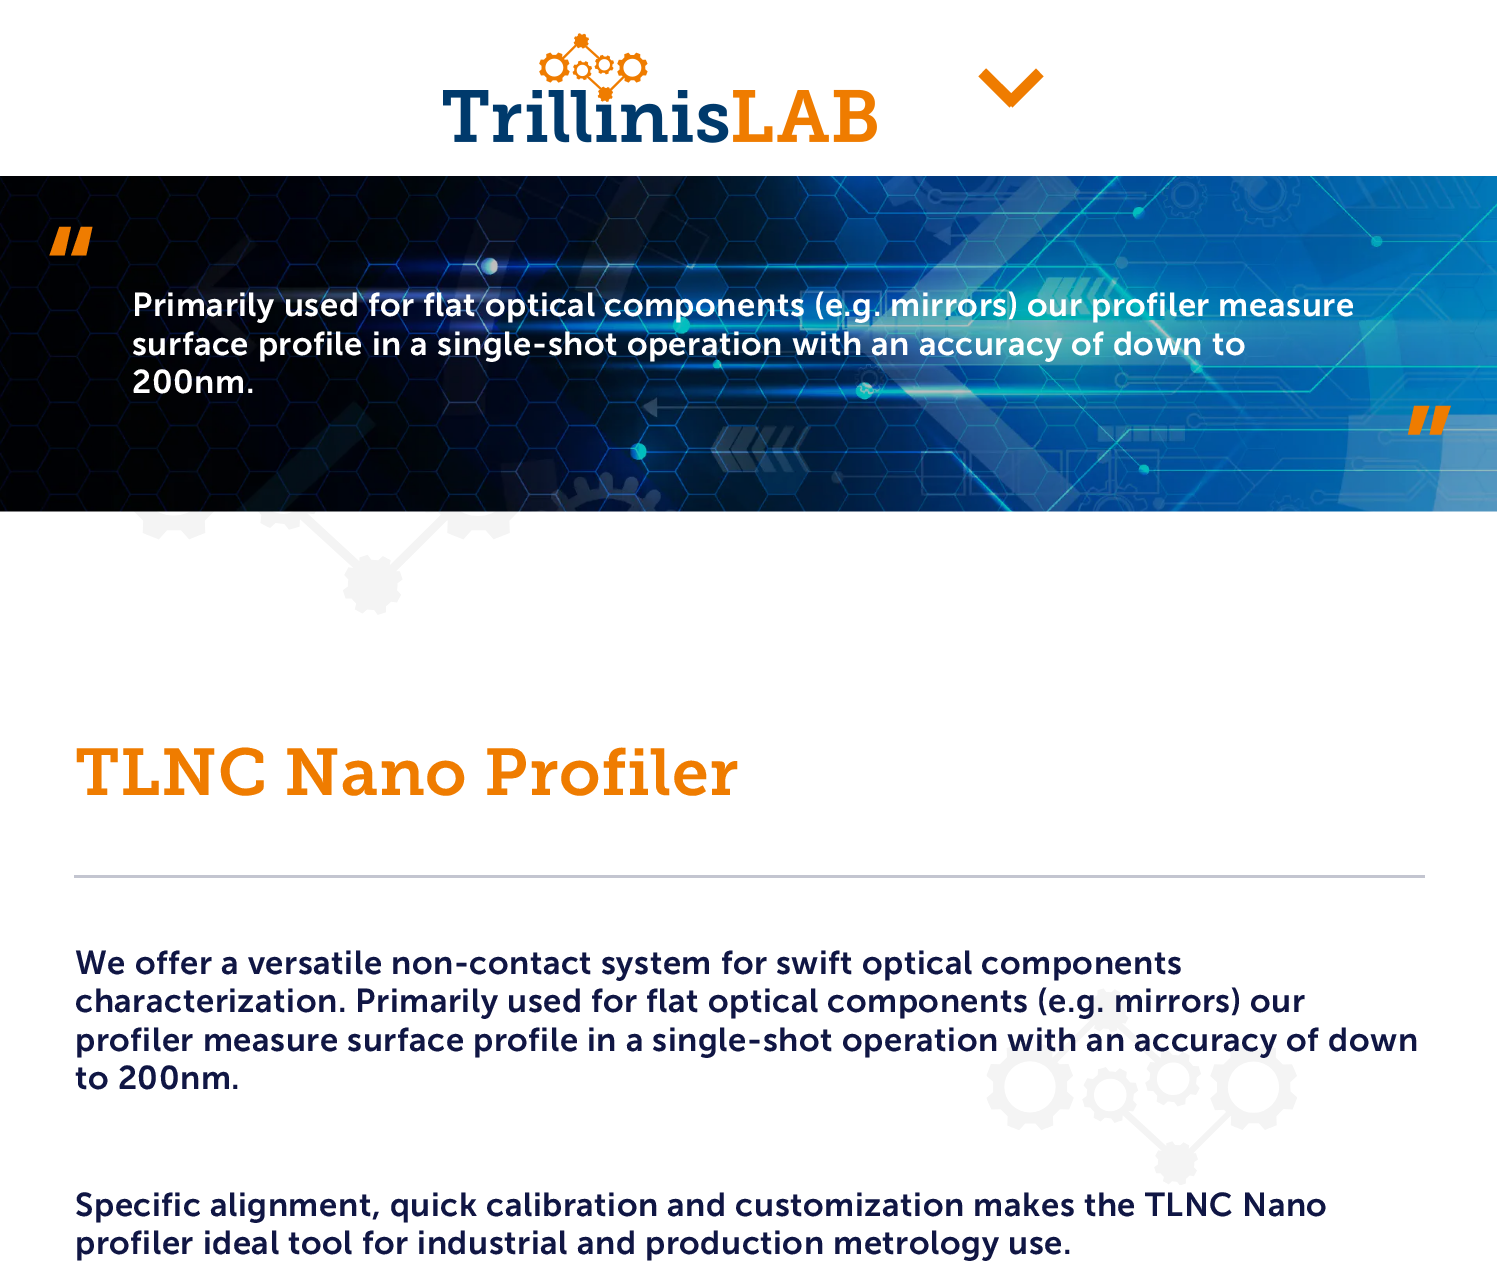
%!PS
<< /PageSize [1497 1269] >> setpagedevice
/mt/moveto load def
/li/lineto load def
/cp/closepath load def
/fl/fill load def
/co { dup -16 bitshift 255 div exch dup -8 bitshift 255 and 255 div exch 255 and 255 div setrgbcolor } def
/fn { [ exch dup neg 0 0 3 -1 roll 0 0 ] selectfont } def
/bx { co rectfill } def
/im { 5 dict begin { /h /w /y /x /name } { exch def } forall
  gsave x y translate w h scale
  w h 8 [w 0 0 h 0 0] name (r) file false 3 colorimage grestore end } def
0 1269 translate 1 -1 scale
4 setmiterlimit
0 0 1497 1269 16#FFFFFF bx
(media/1.raw) 443 33 434 110 im
16#EF7C00 co
978.5 76.5 mt 986 68.5 li 1017.5 99.5 li 1009.5 107.5 li cp fl
1036 68.5 mt 1043.5 76.5 li 1012.5 107.5 li 1005 99.5 li cp fl
(media/2.raw) 121 511 1176 674 im
(media/3.raw) 0 176 1497 336 im
74 875 1351 3 16#C3C5D0 bx
/MuseoSans-SemiBold 132 fn
16#EF7C00 co
44 322 mt .55 0 (“) ashow
/MuseoSans-SemiBold 33 fn
16#FFFFFF co
132 316 mt .55 0 (Primarily used for flat optical components \(e.g. mirrors\) our profiler measure) ashow
132 355 mt .55 0 (surface profile in a single-shot operation with an accuracy of down to) ashow
132 393 mt .55 0 (200nm.) ashow
/MuseoSans-SemiBold 132 fn
16#EF7C00 co
1402 501 mt .55 0 (”) ashow
/MuseoSlab-SemiBold 66 fn
75 795 mt .55 0 (TLNC Nano Profiler) ashow
/MuseoSans-SemiBold 33 fn
16#101644 co
75 974 mt .55 0 (We offer a versatile non-contact system for swift optical components) ashow
75 1012 mt .55 0 (characterization. Primarily used for flat optical components \(e.g. mirrors\) our) ashow
75 1051 mt .55 0 (profiler measure surface profile in a single-shot operation with an accuracy of down) ashow
75 1089 mt .55 0 (to 200nm.) ashow
75 1216 mt .55 0 (Specific alignment, quick calibration and customization makes the TLNC Nano) ashow
75 1254 mt .55 0 (profiler ideal tool for industrial and production metrology use.) ashow
showpage
